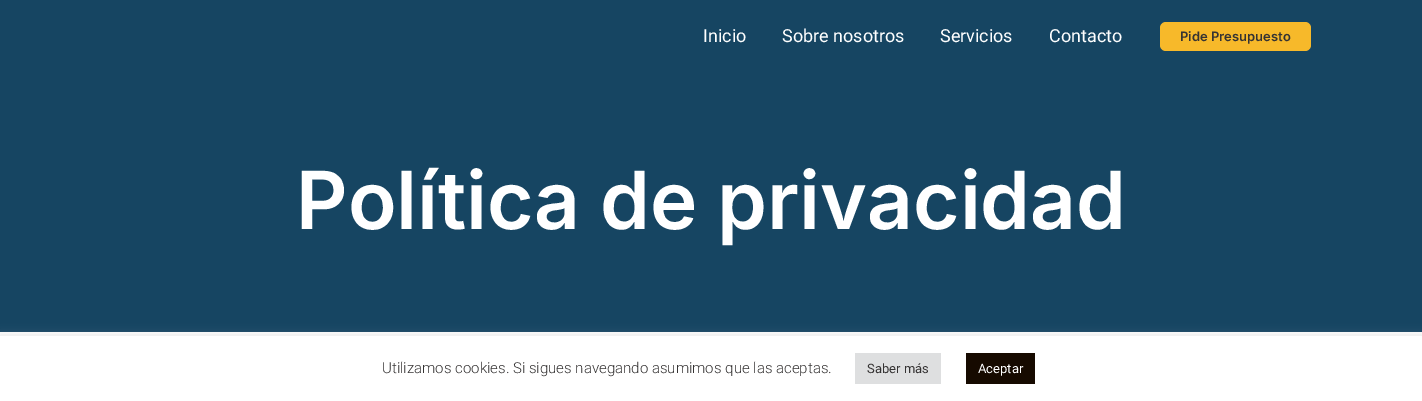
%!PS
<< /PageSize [1422 401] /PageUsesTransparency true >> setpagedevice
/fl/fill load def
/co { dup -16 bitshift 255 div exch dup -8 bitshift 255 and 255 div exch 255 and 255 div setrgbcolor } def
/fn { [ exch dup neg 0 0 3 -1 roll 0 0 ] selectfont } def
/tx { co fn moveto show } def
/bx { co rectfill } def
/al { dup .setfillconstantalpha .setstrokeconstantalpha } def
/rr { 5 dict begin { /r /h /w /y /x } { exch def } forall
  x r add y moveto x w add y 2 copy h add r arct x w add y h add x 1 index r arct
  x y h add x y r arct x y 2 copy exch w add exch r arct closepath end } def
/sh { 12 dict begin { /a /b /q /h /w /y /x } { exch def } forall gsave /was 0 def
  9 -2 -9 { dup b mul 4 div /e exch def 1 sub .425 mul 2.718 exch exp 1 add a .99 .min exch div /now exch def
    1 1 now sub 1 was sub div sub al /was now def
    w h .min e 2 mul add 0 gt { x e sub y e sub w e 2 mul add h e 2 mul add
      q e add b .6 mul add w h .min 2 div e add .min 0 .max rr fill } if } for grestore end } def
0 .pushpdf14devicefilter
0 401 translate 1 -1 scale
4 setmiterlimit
0 0 1422 401 16#FFFFFF bx
0 0 1422 332 16#164562 bx
16#F7B92A co
1160 22 151 29 6 rr fl
16#ACABAB co
0 335 1422 65 0 5 .3 sh
0 336 1422 65 16#FFFFFF bx
855 353 86 31 16#DEDFE0 bx
966 353 69 31 16#160A00 bx
(Inicio) 703 42 /Roboto-Regular 18 16#FFFFFF tx
(Sobre nosotros) 782 42 /Roboto-Regular 18 16#FFFFFF tx
(Servicios) 940 42 /Roboto-Regular 18 16#FFFFFF tx
(Contacto) 1049 42 /Roboto-Regular 18 16#FFFFFF tx
(Pide Presupuesto) 1180 41 /Inter-SemiBold 13 16#353333 tx
(Política de privacidad) 296 229 /Inter-SemiBold 80 16#FFFFFF tx
(Utilizamos cookies. Si sigues navegando asumimos que las aceptas.) 382 373 /Roboto-Light 15 16#353333 tx
(Saber más) 867 373 /Roboto-Regular 13 16#353333 tx
(Aceptar) 978 373 /Roboto-Regular 13 16#FFFFFF tx
.poppdf14devicefilter showpage
